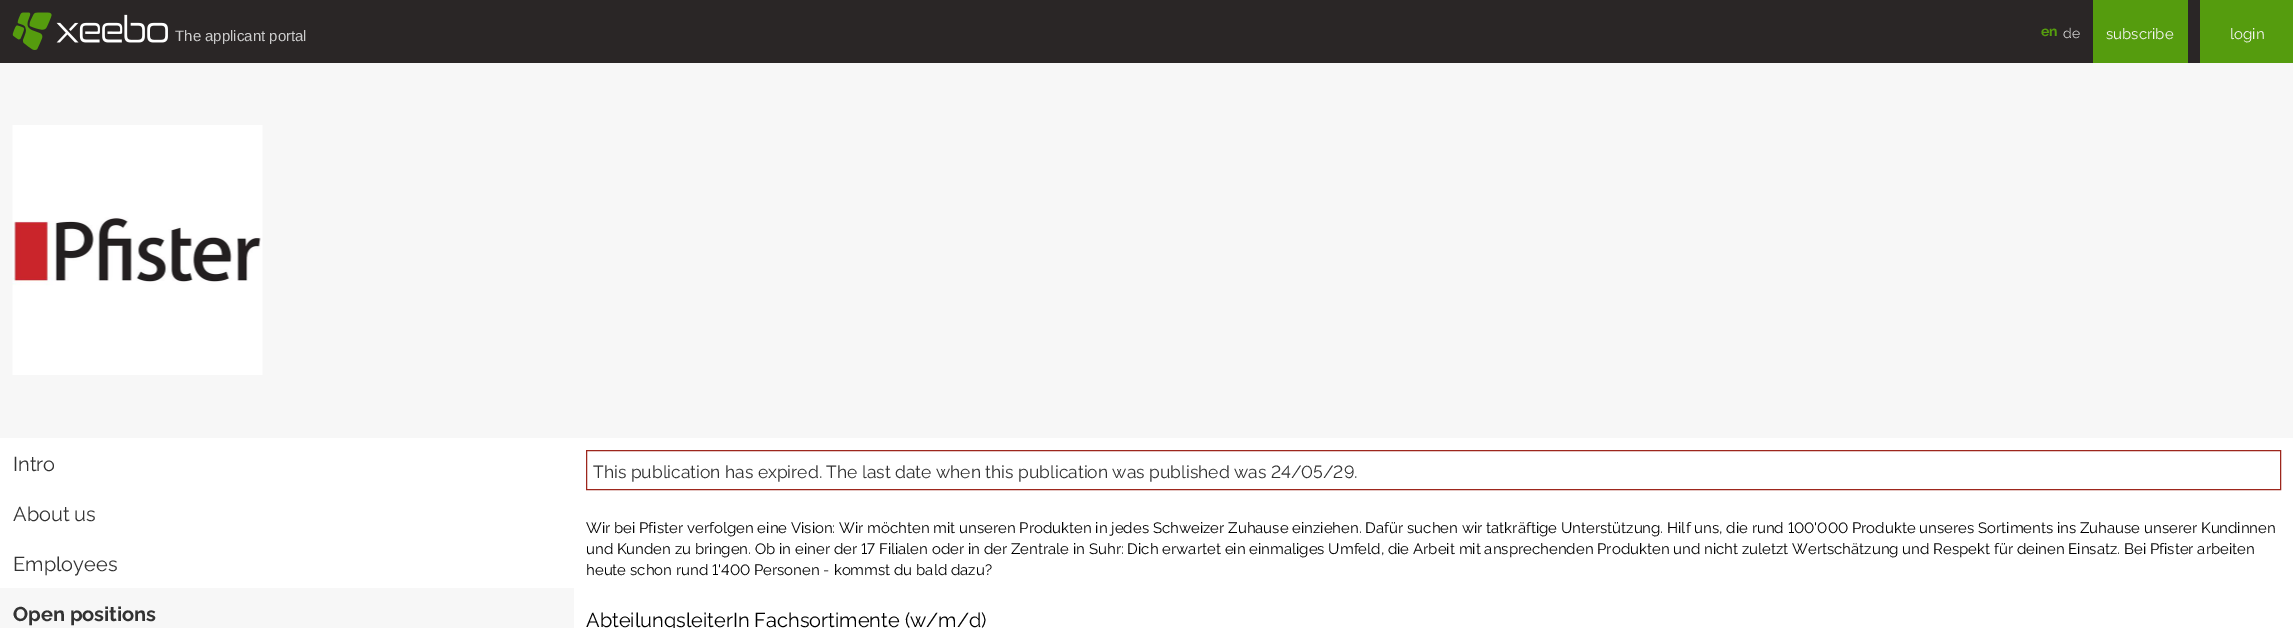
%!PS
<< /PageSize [2293 628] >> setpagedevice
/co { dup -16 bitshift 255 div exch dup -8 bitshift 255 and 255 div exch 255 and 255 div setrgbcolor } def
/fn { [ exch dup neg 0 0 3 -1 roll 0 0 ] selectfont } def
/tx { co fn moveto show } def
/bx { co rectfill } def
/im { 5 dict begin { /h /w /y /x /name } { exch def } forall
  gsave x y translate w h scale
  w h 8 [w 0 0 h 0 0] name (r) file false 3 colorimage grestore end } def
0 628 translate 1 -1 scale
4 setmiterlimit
0 0 2293 628 16#FFFFFF bx
0 0 2200 63 16#2A2626 bx
(media/1.raw) 12 12 40 38 im
(media/2.raw) 56 14 112 29 im
2093 0 95 63 16#559C0E bx
2200 0 93 63 16#559C0E bx
0 63 2293 375 16#F7F7F7 bx
(media/3.raw) 12 125 251 250 im
0 588 574 40 16#F7F7F7 bx
16#9D261D co
586.5 450.5 1694 39 rectstroke
(The applicant portal) 175 41 /LiberationSans-Regular 15 16#CCCCCC tx
(en) 2041 36 /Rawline-Bold 14 16#559C0E tx
(de) 2063 38 /Rawline-Regular 14 16#D2D1D1 tx
(subscribe) 2106 39 /Rawline-Regular 15 16#F7F7F7 tx
(login) 2230 39 /Rawline-Regular 15 16#F7F7F7 tx
(Intro) 13 471 /Rawline-Regular 20 16#333333 tx
(About us) 13 521 /Rawline-Regular 20 16#333333 tx
(Employees) 13 571 /Rawline-Regular 20 16#333333 tx
(Open positions) 13 621 /Rawline-Bold 20 16#333333 tx
(This publication has expired. The last date when this publication was published was 24/05/29.) 593 478 /Rawline-Regular 17.5 16#333333 tx
(Wir bei Pfister verfolgen eine Vision: Wir möchten mit unseren Produkten in jedes Schweizer Zuhause einziehen. Dafür suchen wir tatkräftige Unterstützung. Hilf uns, die rund 100'000 Produkte unseres Sortiments ins Zuhause unserer Kundinnen) 586 533 /Rawline-Regular 15 16#000000 tx
(und Kunden zu bringen. Ob in einer der 17 Filialen oder in der Zentrale in Suhr: Dich erwartet ein einmaliges Umfeld, die Arbeit mit ansprechenden Produkten und nicht zuletzt Wertschätzung und Respekt für deinen Einsatz. Bei Pfister arbeiten) 586 554 /Rawline-Regular 15 16#000000 tx
(heute schon rund 1'400 Personen - kommst du bald dazu?) 586 575 /Rawline-Regular 15 16#000000 tx
(AbteilungsleiterIn Fachsortimente \(w/m/d\)) 586 627 /Rawline-Regular 20 16#000000 tx
showpage
